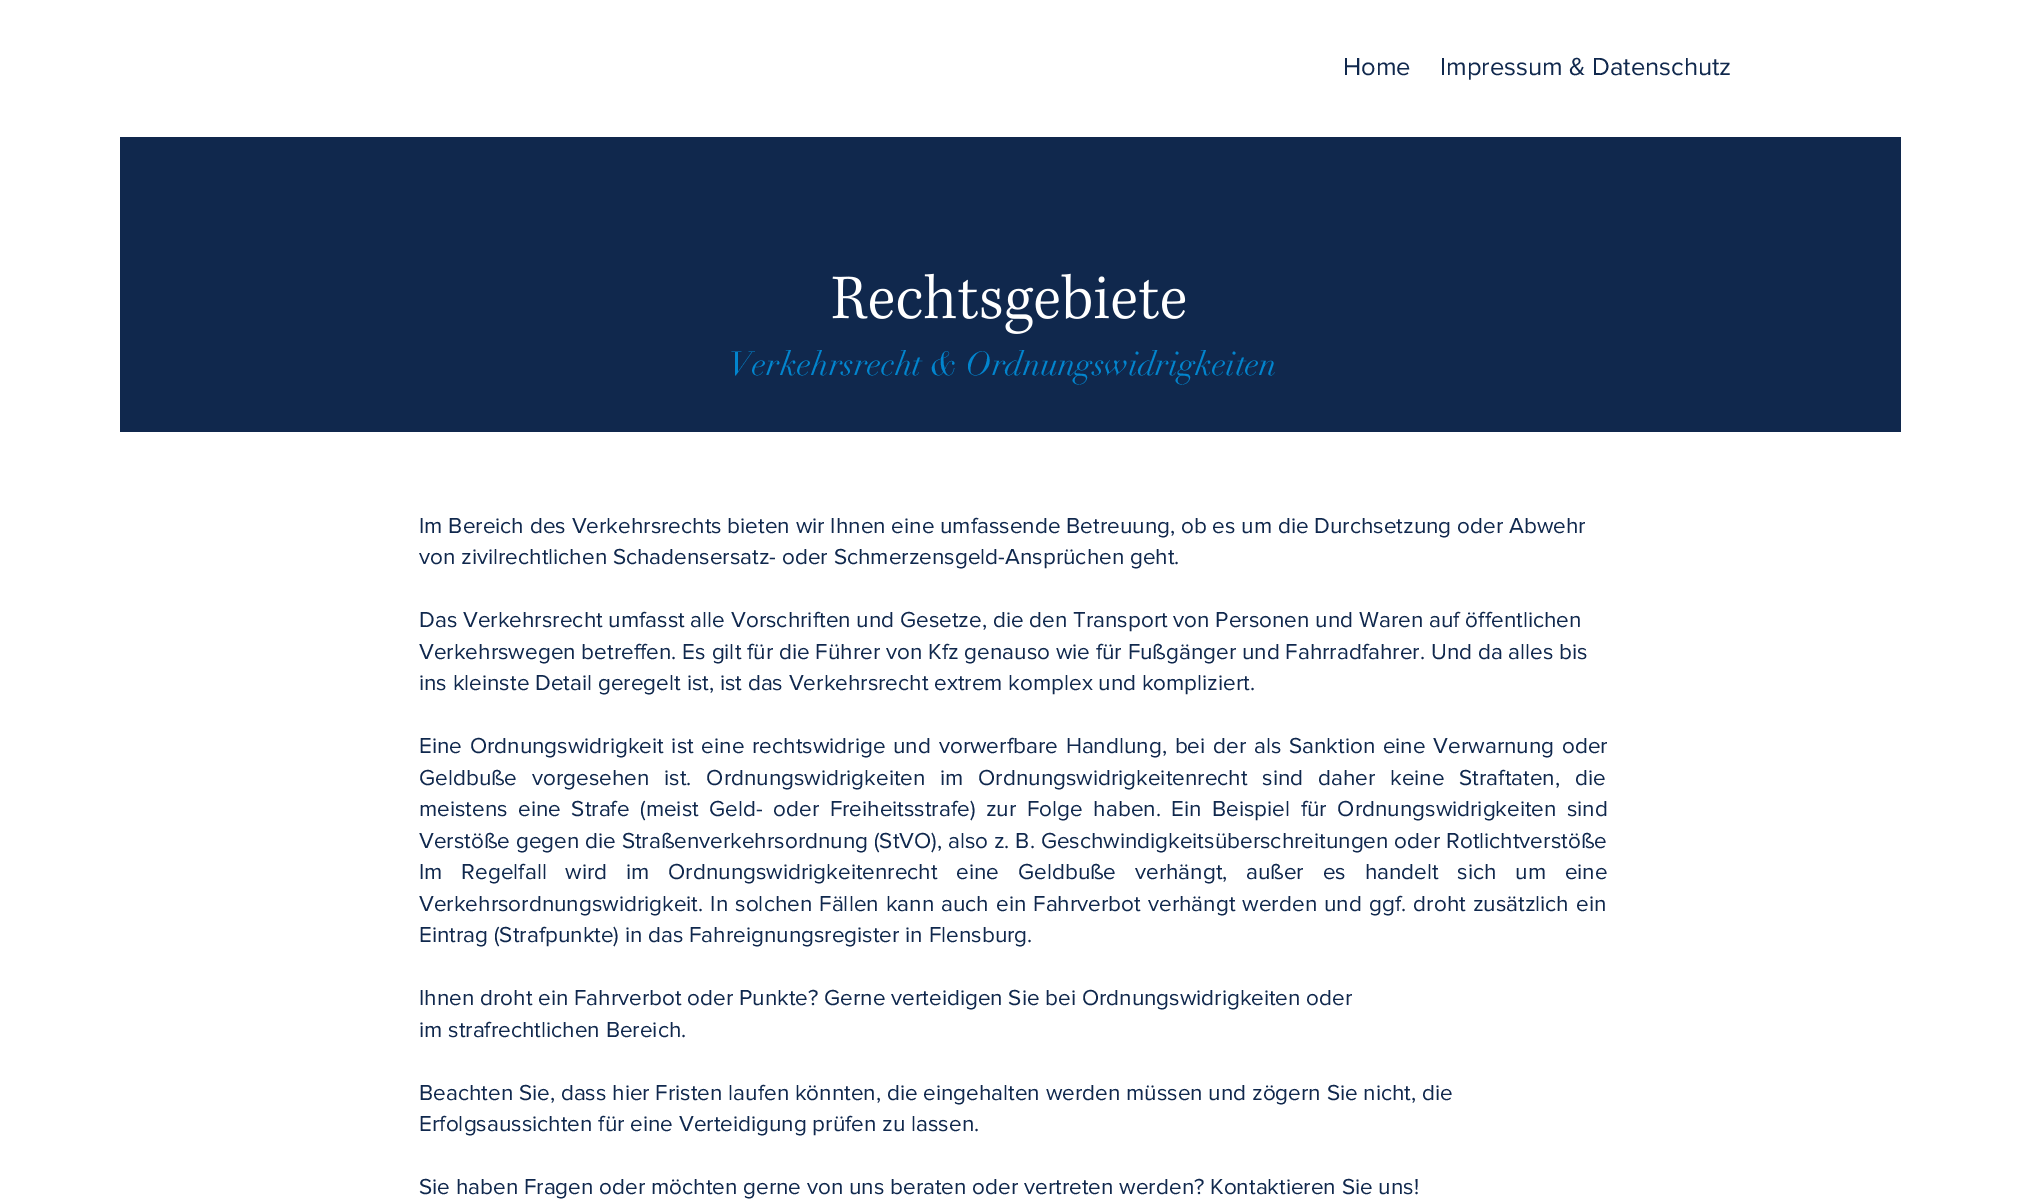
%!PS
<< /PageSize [2020 1201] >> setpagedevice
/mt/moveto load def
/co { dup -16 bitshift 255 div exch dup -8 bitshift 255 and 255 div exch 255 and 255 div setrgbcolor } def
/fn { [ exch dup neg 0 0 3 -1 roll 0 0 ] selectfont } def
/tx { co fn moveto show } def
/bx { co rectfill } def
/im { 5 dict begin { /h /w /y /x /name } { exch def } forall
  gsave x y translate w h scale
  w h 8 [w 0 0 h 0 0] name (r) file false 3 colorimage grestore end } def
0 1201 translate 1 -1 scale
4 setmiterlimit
0 0 2020 1201 16#FFFFFF bx
120 137 1781 295 16#10284D bx
(media/1.raw) 832 273 354 61 im
(Home) 1343 75 /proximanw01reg-Regular 25.5 16#10284D tx
(Impressum & Datenschutz) 1440 75 /proximanw01reg-Regular 25.5 16#10284D tx
(Verkehrsrecht & Ordnungswidrigkeiten) 729 375 /didot-Regular 33 16#0285CE tx
(Im Bereich des Verkehrsrechts bieten wir Ihnen eine umfassende Betreuung, ob es um die Durchsetzung oder Abwehr) 419 533 /proximanw01reg-Regular 22.5 16#10284D tx
(von zivilrechtlichen Schadensersatz- oder Schmerzensgeld-Ansprüchen geht.) 419 564 /proximanw01reg-Regular 22.5 16#10284D tx
(Das Verkehrsrecht umfasst alle Vorschriften und Gesetze, die den Transport von Personen und Waren auf öffentlichen) 419 627 /proximanw01reg-Regular 22.5 16#10284D tx
(Verkehrswegen betreffen. Es gilt für die Führer von Kfz genauso wie für Fußgänger und Fahrradfahrer. Und da alles bis) 419 659 /proximanw01reg-Regular 22.5 16#10284D tx
(ins kleinste Detail geregelt ist, ist das Verkehrsrecht extrem komplex und kompliziert.) 419 690 /proximanw01reg-Regular 22.5 16#10284D tx
419 753 mt 2 0 32 (Eine Ordnungswidrigkeit ist eine rechtswidrige und vorwerfbare Handlung, bei der als Sanktion eine Verwarnung oder) widthshow
419 785 mt 9 0 32 (Geldbuße vorgesehen ist. Ordnungswidrigkeiten im Ordnungswidrigkeitenrecht sind daher keine Straftaten, die) widthshow
419 816 mt 4.75 0 32 (meistens eine Strafe \(meist Geld- oder Freiheitsstrafe\) zur Folge haben. Ein Beispiel für Ordnungswidrigkeiten sind) widthshow
(Verstöße gegen die Straßenverkehrsordnung \(StVO\), also z. B. Geschwindigkeitsüberschreitungen oder Rotlichtverstöße) 419 848 /proximanw01reg-Regular 22.5 16#10284D tx
419 879 mt 13 0 32 (Im Regelfall wird im Ordnungswidrigkeitenrecht eine Geldbuße verhängt, außer es handelt sich um eine) widthshow
419 911 mt 1.3 0 32 (Verkehrsordnungswidrigkeit. In solchen Fällen kann auch ein Fahrverbot verhängt werden und ggf. droht zusätzlich ein) widthshow
(Eintrag \(Strafpunkte\) in das Fahreignungsregister in Flensburg.) 419 942 /proximanw01reg-Regular 22.5 16#10284D tx
(Ihnen droht ein Fahrverbot oder Punkte? Gerne verteidigen Sie bei Ordnungswidrigkeiten oder) 419 1005 /proximanw01reg-Regular 22.5 16#10284D tx
(im strafrechtlichen Bereich.) 419 1037 /proximanw01reg-Regular 22.5 16#10284D tx
(Beachten Sie, dass hier Fristen laufen könnten, die eingehalten werden müssen und zögern Sie nicht, die) 419 1100 /proximanw01reg-Regular 22.5 16#10284D tx
(Erfolgsaussichten für eine Verteidigung prüfen zu lassen.) 419 1131 /proximanw01reg-Regular 22.5 16#10284D tx
(Sie haben Fragen oder möchten gerne von uns beraten oder vertreten werden? Kontaktieren Sie uns!) 419 1194 /proximanw01reg-Regular 22.5 16#10284D tx
showpage
